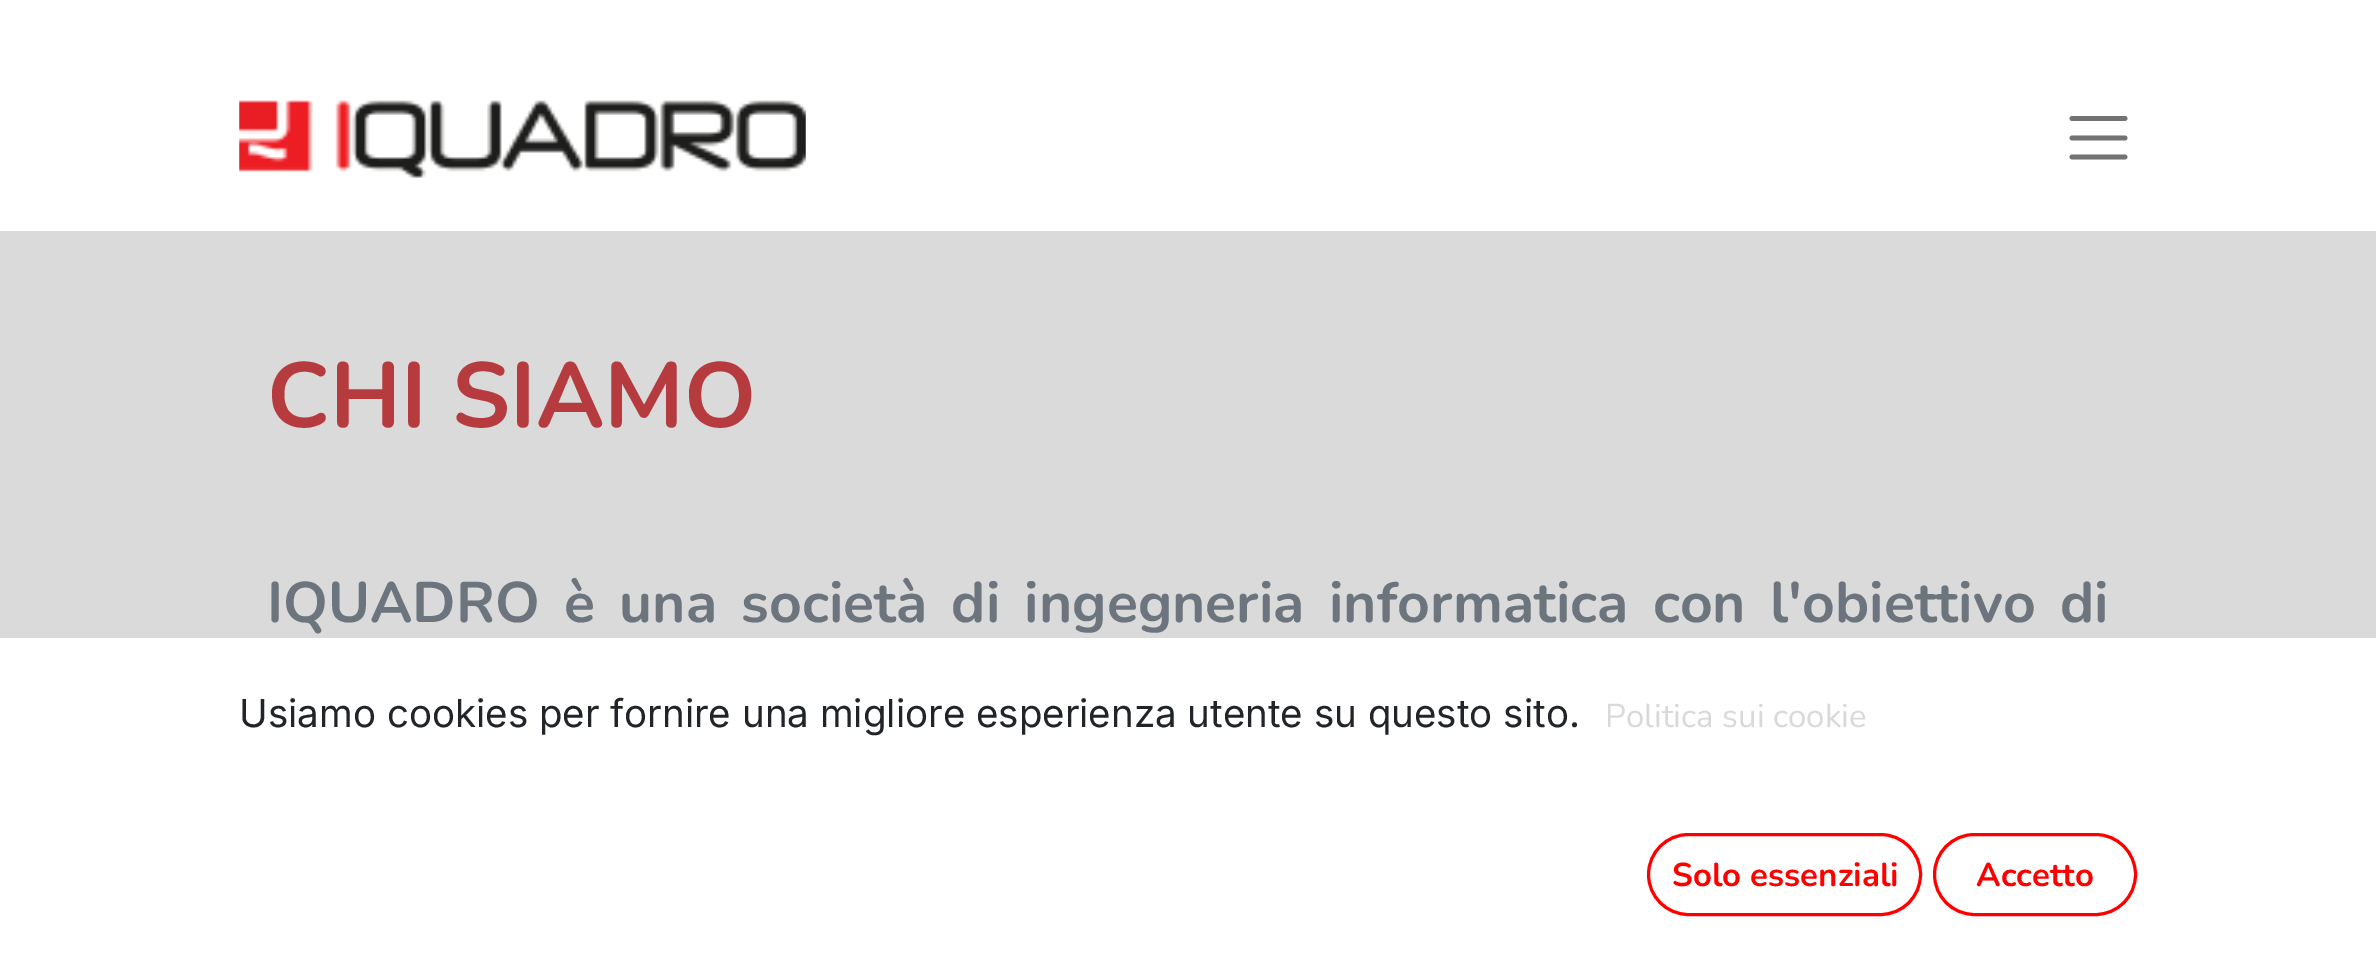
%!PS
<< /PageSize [2376 959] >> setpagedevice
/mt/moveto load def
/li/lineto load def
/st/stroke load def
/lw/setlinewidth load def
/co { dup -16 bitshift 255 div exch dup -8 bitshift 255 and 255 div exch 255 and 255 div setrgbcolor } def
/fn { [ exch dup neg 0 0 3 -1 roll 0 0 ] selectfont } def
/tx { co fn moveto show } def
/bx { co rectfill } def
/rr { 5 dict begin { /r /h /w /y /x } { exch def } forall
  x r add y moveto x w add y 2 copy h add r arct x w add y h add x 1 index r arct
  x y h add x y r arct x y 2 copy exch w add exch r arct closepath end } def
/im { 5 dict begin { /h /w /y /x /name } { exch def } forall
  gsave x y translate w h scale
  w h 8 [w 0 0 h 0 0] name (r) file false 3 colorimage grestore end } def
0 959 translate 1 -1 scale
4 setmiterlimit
0 0 2376 959 16#FFFFFF bx
(media/1.raw) 239 100 567 78 im
16#737373 co
4.8 lw
1 setlinecap
2072 118.5 mt 2125 118.5 li 2072 138 mt 2125 138 li 2072 157 mt 2125 157 li st
0 231 2376 407 16#DADADA bx
16#FF0000 co
3 lw
0 setlinecap
1648.5 834.5 272 80 40 rr st
1934.5 834.5 201 80 40 rr st
(CHI SIAMO) 267 427 /Nunito-Bold 92 16#B63B3F tx
/Nunito-Bold 57.05 fn
16#6C757D co
267 622 mt 8.75 0 32 (IQUADRO è una società di ingegneria informatica con l'obiettivo di) widthshow
(Usiamo cookies per fornire una migliore esperienza utente su questo sito.) 239 727 /Inter-Regular 38.5 16#212529 tx
(Politica sui cookie) 1605 727 /Nunito-Regular 33 16#D9D9D9 tx
(Solo essenziali) 1672 886 /Nunito-Bold 33 16#FF0000 tx
(Accetto) 1976 886 /Nunito-Bold 33 16#FF0000 tx
showpage
